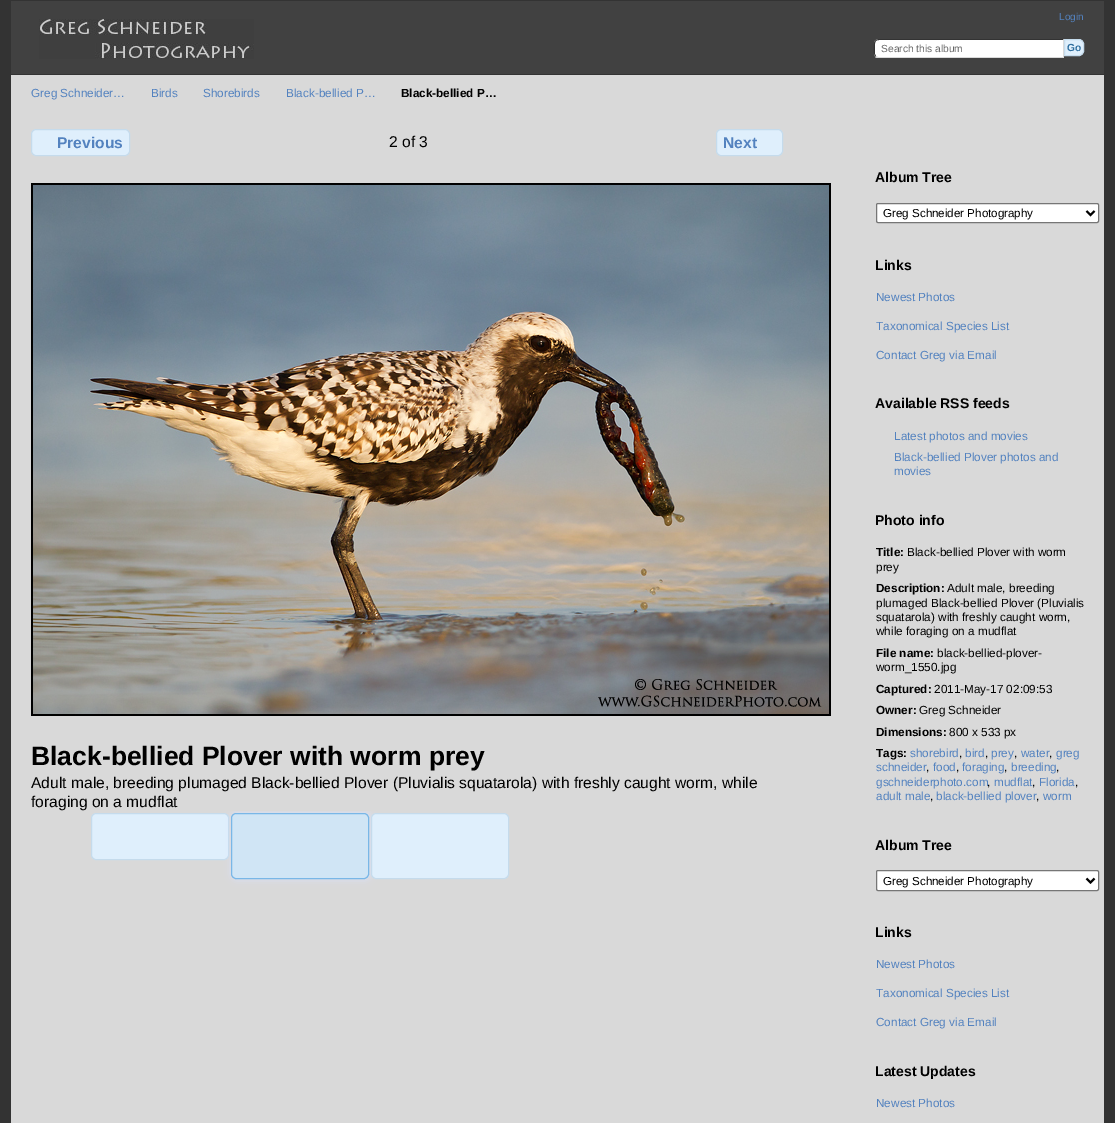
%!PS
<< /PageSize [1115 1123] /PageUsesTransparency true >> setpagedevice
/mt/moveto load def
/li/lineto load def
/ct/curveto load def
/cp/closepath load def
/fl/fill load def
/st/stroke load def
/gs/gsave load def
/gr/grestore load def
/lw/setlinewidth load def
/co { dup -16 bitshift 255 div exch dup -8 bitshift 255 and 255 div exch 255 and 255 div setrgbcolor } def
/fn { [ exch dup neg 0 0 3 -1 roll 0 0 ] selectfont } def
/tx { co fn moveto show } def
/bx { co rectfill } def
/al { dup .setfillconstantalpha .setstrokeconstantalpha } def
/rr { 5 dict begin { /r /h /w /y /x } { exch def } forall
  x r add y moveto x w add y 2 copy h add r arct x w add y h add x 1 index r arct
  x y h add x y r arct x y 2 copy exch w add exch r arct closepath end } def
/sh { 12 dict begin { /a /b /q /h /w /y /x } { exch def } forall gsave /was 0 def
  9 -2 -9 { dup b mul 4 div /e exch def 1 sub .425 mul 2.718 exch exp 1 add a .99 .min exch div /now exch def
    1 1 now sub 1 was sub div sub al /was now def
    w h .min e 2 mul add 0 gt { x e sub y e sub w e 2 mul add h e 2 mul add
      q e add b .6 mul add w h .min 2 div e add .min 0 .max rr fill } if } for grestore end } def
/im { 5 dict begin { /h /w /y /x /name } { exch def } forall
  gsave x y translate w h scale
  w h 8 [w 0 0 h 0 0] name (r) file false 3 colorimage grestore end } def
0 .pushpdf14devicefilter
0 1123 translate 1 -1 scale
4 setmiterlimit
0 0 1115 1123 16#333333 bx
11 75 1093 1048 16#D9D9D9 bx
11 1 1093 73 16#414141 bx
(media/1.raw) 39 19 215 40 im
16#FFFFFF co
879 39 mt 1064 39 li 1064 58 li 879 58 li 876 58 874 56 874 53 ct 874 44 li 874 41 876 39 879 39 ct cp fl
16#333333 co
879 39 mt 878 39 876 40 875 40 ct 876 41 li 877 40 878 40 879 40 ct 1063 40 li 1064 39 li cp fl
16#D9D9D9 co
1064 39 mt 1063 40 li 1063 57 li 1064 58 li cp fl
1064 58 mt 1063 57 li 878 57 li 876 56 li 875 57 li 876 58 878 58 879 58 ct cp fl
16#333333 co
874 44 mt 874 47 873 54.5 875.5 56.5 ct 876 56 li 875 54 li 875 43.5 li 875 42.5 875.5 41.5 876 41 ct 875.5 40.5 li 874.5 41 874 42.5 874 44 ct cp fl
16#DFEFFC co
1064.5 39.5 mt 1079 39.5 li 1081.5 39.5 1083.5 41.5 1083.5 44 ct 1083.5 51 li 1083.5 53.5 1081.5 55.5 1079 55.5 ct 1064.5 55.5 li cp gs fl gr
16#C5DBEC co
st
16#DFEFFC co
31.5 129.5 98 26 4.5 rr gs fl gr
16#C5DBEC co
st
16#DFEFFC co
716.5 129.5 66 26 4.5 rr gs fl gr
16#C5DBEC co
st
(media/2.raw) 31 183 800 533 im
16#DFEFFC co
91.5 813.5 137 46 4.5 rr gs fl gr
16#C5DBEC co
st
gs
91 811 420 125 rectclip
16#D7E1FA co
232 813 138 66 5 4 1 sh
gr
16#D0E5F5 co
231.5 813.5 137 65 4.5 rr gs fl gr
16#79B7E7 co
st
16#DFEFFC co
371.5 813.5 137 65 4.5 rr gs fl gr
16#C5DBEC co
st
16#FFFFFF co
876.5 203.5 222 19 1.5 rr gs fl gr
16#767676 co
st
16#000000 co
2 lw
1086.5 211 mt 1090.5 215 li 1094.5 211 li st
16#FFFFFF co
876.5 870.5 222 20 1.5 rr gs fl gr
16#767676 co
1 lw
st
16#000000 co
2 lw
1086.5 878.5 mt 1090.5 882.5 li 1094.5 878.5 li st
(Login) 1059 20 /LiberationSans-Regular 10 16#5382BF tx
(Search this album) 881 52 /LiberationSans-Regular 10.25 16#666666 tx
(Go) 1067 51 /LiberationSans-Bold 10.25 16#2E6E9E tx
(Greg Schneider…) 31 97 /LiberationSans-Regular 11.75 16#5382BF tx
(Birds) 151 97 /LiberationSans-Regular 11.75 16#5382BF tx
(Shorebirds) 203 97 /LiberationSans-Regular 11.75 16#5382BF tx
(Black-bellied P…) 286 97 /LiberationSans-Regular 11.75 16#5382BF tx
(Black-bellied P…) 401 97 /LiberationSans-Bold 11.75 16#000000 tx
(Previous) 57 148 /LiberationSans-Bold 15.6 16#5382BF tx
(2 of 3) 389 147 /LiberationSans-Regular 15.6 16#000000 tx
(Next) 723 148 /LiberationSans-Bold 15.6 16#5382BF tx
(Black-bellied Plover with worm prey) 31 765 /LiberationSans-Bold 26.5 16#000000 tx
(Adult male, breeding plumaged Black-bellied Plover \(Pluvialis squatarola\) with freshly caught worm, while) 31 788 /LiberationSans-Regular 15.6 16#000000 tx
(foraging on a mudflat) 31 807 /LiberationSans-Regular 15.6 16#000000 tx
(Album Tree) 875 182 /LiberationSans-Bold 14 16#000000 tx
(Greg Schneider Photography) 883 217 /LiberationSans-Regular 11.6 16#000000 tx
(Links) 875 270 /LiberationSans-Bold 14 16#000000 tx
(Newest Photos) 876 301 /LiberationSans-Regular 11.75 16#5382BF tx
(Taxonomical Species List) 876 330 /LiberationSans-Regular 11.75 16#5382BF tx
(Contact Greg via Email) 876 359 /LiberationSans-Regular 11.75 16#5382BF tx
(Available RSS feeds) 875 408 /LiberationSans-Bold 14 16#000000 tx
(Latest photos and movies) 894 440 /LiberationSans-Regular 11.75 16#5382BF tx
(Black-bellied Plover photos and) 894 461 /LiberationSans-Regular 11.75 16#5382BF tx
(movies) 894 475 /LiberationSans-Regular 11.75 16#5382BF tx
(Photo info) 875 525 /LiberationSans-Bold 14 16#000000 tx
(Title:) 876 556 /LiberationSans-Bold 11.75 16#000000 tx
(Black-bellied Plover with worm) 907 556 /LiberationSans-Regular 11.75 16#000000 tx
(prey) 876 571 /LiberationSans-Regular 11.75 16#000000 tx
(Description:) 876 592 /LiberationSans-Bold 11.75 16#000000 tx
(Adult male, breeding) 947 592 /LiberationSans-Regular 11.75 16#000000 tx
(plumaged Black-bellied Plover \(Pluvialis) 876 607 /LiberationSans-Regular 11.75 16#000000 tx
(squatarola\) with freshly caught worm,) 876 621 /LiberationSans-Regular 11.75 16#000000 tx
(while foraging on a mudflat) 876 635 /LiberationSans-Regular 11.75 16#000000 tx
(File name:) 876 657 /LiberationSans-Bold 11.75 16#000000 tx
(black-bellied-plover-) 937 657 /LiberationSans-Regular 11.75 16#000000 tx
(worm_1550.jpg) 876 671 /LiberationSans-Regular 11.75 16#000000 tx
(Captured:) 876 693 /LiberationSans-Bold 11.75 16#000000 tx
(2011-May-17 02:09:53) 934 693 /LiberationSans-Regular 11.75 16#000000 tx
(Owner:) 876 714 /LiberationSans-Bold 11.75 16#000000 tx
(Greg Schneider) 919 714 /LiberationSans-Regular 11.75 16#000000 tx
(Dimensions:) 876 736 /LiberationSans-Bold 11.75 16#000000 tx
(800 x 533 px) 949 736 /LiberationSans-Regular 11.75 16#000000 tx
(Tags:) 876 757 /LiberationSans-Bold 11.75 16#000000 tx
(shorebird) 910 757 /LiberationSans-Regular 11.75 16#5382BF tx
(,) 959 757 /LiberationSans-Regular 11.75 16#000000 tx
(bird) 965 757 /LiberationSans-Regular 11.75 16#5382BF tx
(,) 985 757 /LiberationSans-Regular 11.75 16#000000 tx
(prey) 991 757 /LiberationSans-Regular 11.75 16#5382BF tx
(,) 1014 757 /LiberationSans-Regular 11.75 16#000000 tx
(water) 1021 757 /LiberationSans-Regular 11.75 16#5382BF tx
(,) 1049 757 /LiberationSans-Regular 11.75 16#000000 tx
(greg) 1056 757 /LiberationSans-Regular 11.75 16#5382BF tx
(schneider) 876 771 /LiberationSans-Regular 11.75 16#5382BF tx
(,) 926 771 /LiberationSans-Regular 11.75 16#000000 tx
(food) 933 771 /LiberationSans-Regular 11.75 16#5382BF tx
(,) 956 771 /LiberationSans-Regular 11.75 16#000000 tx
(foraging) 962 771 /LiberationSans-Regular 11.75 16#5382BF tx
(,) 1004 771 /LiberationSans-Regular 11.75 16#000000 tx
(breeding) 1011 771 /LiberationSans-Regular 11.75 16#5382BF tx
(,) 1056 771 /LiberationSans-Regular 11.75 16#000000 tx
(gschneiderphoto.com) 876 786 /LiberationSans-Regular 11.75 16#5382BF tx
(,) 987 786 /LiberationSans-Regular 11.75 16#000000 tx
(mudflat) 994 786 /LiberationSans-Regular 11.75 16#5382BF tx
(,) 1032 786 /LiberationSans-Regular 11.75 16#000000 tx
(Florida) 1039 786 /LiberationSans-Regular 11.75 16#5382BF tx
(,) 1075 786 /LiberationSans-Regular 11.75 16#000000 tx
(adult male) 876 800 /LiberationSans-Regular 11.75 16#5382BF tx
(,) 930 800 /LiberationSans-Regular 11.75 16#000000 tx
(black-bellied plover) 936 800 /LiberationSans-Regular 11.75 16#5382BF tx
(,) 1036 800 /LiberationSans-Regular 11.75 16#000000 tx
(worm) 1043 800 /LiberationSans-Regular 11.75 16#5382BF tx
(Album Tree) 875 850 /LiberationSans-Bold 14 16#000000 tx
(Greg Schneider Photography) 883 885 /LiberationSans-Regular 11.6 16#000000 tx
(Links) 875 937 /LiberationSans-Bold 14 16#000000 tx
(Newest Photos) 876 968 /LiberationSans-Regular 11.75 16#5382BF tx
(Taxonomical Species List) 876 997 /LiberationSans-Regular 11.75 16#5382BF tx
(Contact Greg via Email) 876 1026 /LiberationSans-Regular 11.75 16#5382BF tx
(Latest Updates) 875 1076 /LiberationSans-Bold 14 16#000000 tx
(Newest Photos) 876 1107 /LiberationSans-Regular 11.75 16#5382BF tx
.poppdf14devicefilter showpage
